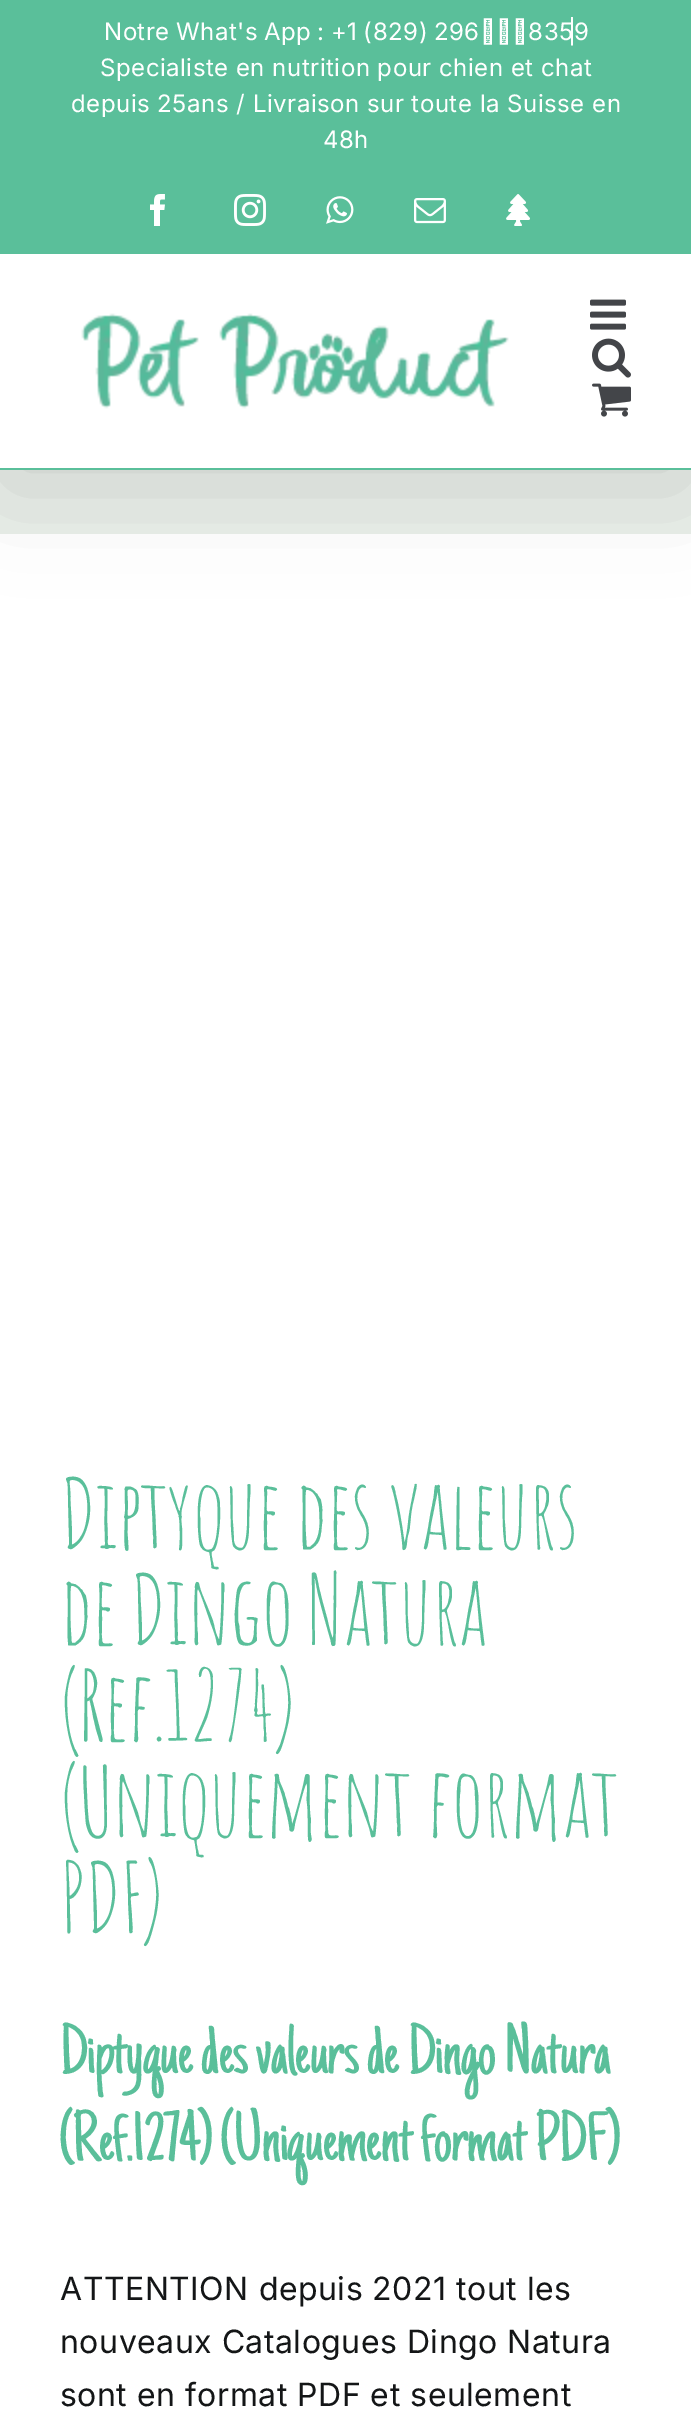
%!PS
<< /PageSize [691 2427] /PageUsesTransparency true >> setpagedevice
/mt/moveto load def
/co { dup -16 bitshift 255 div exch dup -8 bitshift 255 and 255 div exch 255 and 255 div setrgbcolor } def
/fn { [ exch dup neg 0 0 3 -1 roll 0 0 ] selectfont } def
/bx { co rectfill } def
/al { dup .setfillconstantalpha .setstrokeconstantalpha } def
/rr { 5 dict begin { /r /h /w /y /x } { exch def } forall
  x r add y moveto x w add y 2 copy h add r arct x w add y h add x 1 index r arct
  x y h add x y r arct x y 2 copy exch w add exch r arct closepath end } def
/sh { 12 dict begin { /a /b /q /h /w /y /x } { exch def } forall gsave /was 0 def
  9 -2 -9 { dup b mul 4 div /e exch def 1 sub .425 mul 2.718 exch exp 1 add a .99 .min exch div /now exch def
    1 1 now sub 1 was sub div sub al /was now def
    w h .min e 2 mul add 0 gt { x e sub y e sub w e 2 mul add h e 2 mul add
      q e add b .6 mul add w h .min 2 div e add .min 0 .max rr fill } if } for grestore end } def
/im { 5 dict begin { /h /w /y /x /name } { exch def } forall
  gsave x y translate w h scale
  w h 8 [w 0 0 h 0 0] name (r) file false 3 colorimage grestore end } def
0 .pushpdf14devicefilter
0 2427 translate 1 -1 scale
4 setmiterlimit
0 0 691 2427 16#E9EFE9 bx
0 534 691 1893 16#FFFFFF bx
16#000000 co
4 24 684 462 0 50 .14 sh
0 0 691 254 16#5ABF9A bx
(media/1.raw) 150 194 15 32 im
(media/2.raw) 234 194 32 32 im
(media/3.raw) 326 196 28 28 im
(media/4.raw) 414 198 32 26 im
(media/5.raw) 506 194 24 32 im
0 254 691 214 16#FFFFFF bx
0 468 691 2 16#5ABF9A bx
(media/6.raw) 81 313 428 96 im
(media/7.raw) 590 299 36 31 im
(media/8.raw) 592 338 39 40 im
(media/9.raw) 592 383 39 34 im
/Inter-Regular 24 fn
16#FFFFFF co
104 40 mt -1.25 0 32 .5 0 (Notre What's App : +1 \(829\) 296‑8359) awidthshow
568 40 mt .5 0 (|) ashow
100 76 mt .5 0 (Specialiste en nutrition pour chien et chat) ashow
71 112 mt .5 0 (depuis 25ans / Livraison sur toute la Suisse en) ashow
323 148 mt .5 0 (48h) ashow
/AmaticSC-Regular 96 fn
16#5ABF9A co
60 1549 mt -1.4 0 (Diptyque des valeurs) ashow
60 1645 mt -1.4 0 (de Dingo Natura) ashow
60 1741 mt -1.4 0 (\(Ref.1274\)) ashow
60 1837 mt -1.4 0 (\(Uniquement format) ashow
60 1933 mt -1.4 0 (PDF\)) ashow
/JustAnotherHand-Regular 72 fn
60 2073 mt -1.1 0 (Diptyque des valeurs de Dingo Natura) ashow
60 2160 mt -1.1 0 (\(Ref.1274\) \(Uniquement format PDF\)) ashow
/Inter-Regular 32 fn
16#141617 co
60 2300 mt .5 0 (ATTENTION depuis 2021 tout les) ashow
60 2353 mt .5 0 (nouveaux Catalogues Dingo Natura) ashow
60 2406 mt .5 0 (sont en format PDF et seulement) ashow
.poppdf14devicefilter showpage
